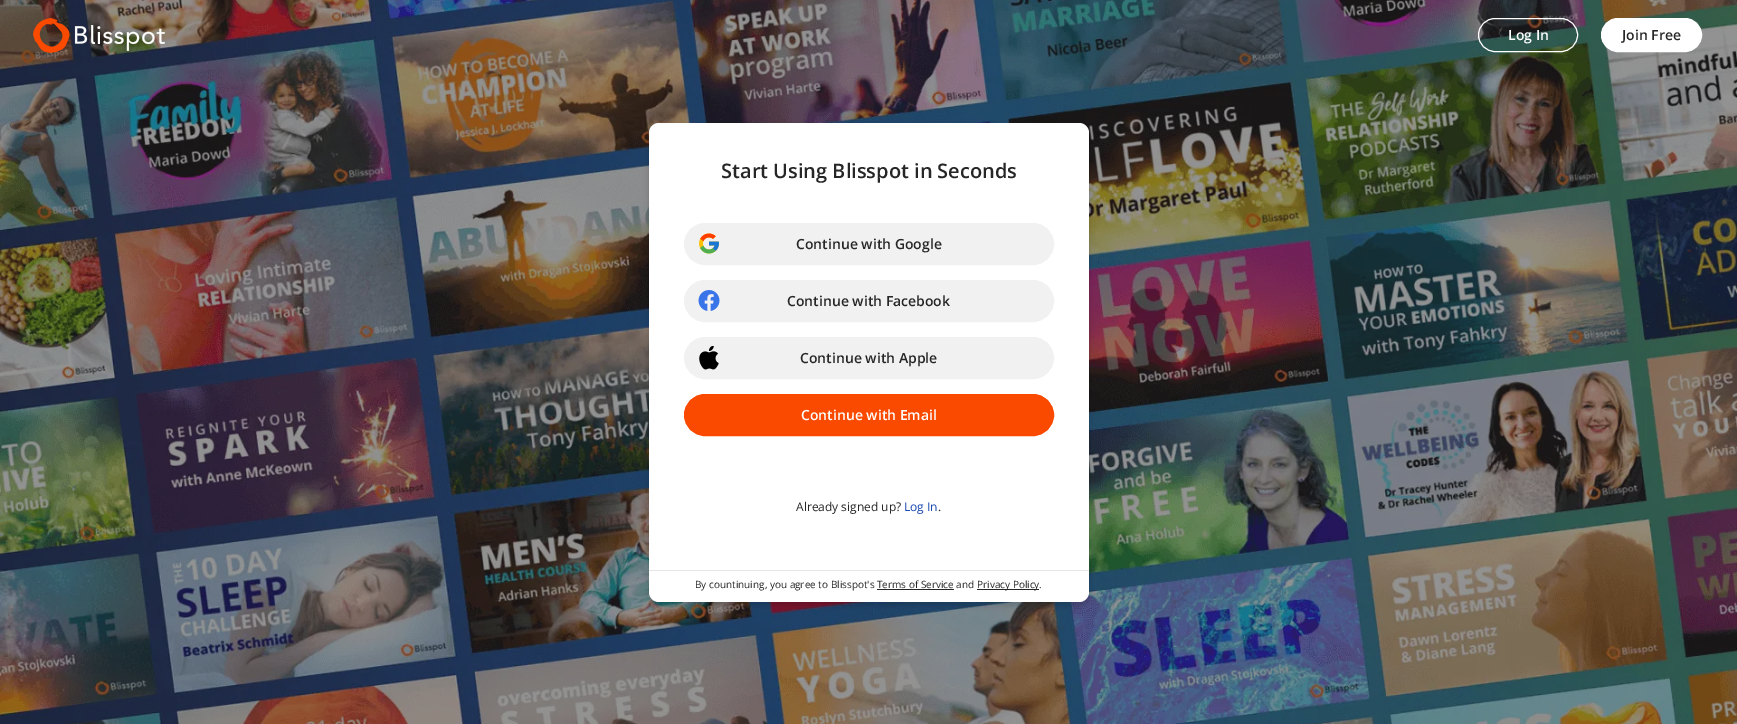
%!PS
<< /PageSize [1737 724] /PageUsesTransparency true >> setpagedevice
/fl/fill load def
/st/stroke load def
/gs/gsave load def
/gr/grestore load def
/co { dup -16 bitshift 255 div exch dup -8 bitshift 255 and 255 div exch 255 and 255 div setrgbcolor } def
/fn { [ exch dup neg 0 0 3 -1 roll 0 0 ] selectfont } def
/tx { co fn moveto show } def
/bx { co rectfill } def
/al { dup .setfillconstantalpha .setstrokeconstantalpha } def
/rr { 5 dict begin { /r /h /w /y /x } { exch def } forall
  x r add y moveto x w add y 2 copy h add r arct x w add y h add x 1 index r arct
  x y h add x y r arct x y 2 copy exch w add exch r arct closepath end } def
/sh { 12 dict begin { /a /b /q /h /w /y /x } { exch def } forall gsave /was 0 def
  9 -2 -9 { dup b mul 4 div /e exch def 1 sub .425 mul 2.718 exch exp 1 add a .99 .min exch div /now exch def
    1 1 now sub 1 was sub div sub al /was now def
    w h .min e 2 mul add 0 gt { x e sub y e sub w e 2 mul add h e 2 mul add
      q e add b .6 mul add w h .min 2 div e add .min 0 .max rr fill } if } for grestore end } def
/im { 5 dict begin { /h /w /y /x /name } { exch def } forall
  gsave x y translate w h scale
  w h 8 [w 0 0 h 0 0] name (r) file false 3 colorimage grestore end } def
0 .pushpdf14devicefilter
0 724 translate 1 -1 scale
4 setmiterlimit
0 0 1737 724 16#FFFFFF bx
(media/1.raw) 0 0 1737 724 im
(media/2.raw) 33 18 132 35 im
1478.5 18.5 99 33 16.5 rr st
1601.5 18.5 100 33 16.5 rr gs fl gr
st
16#000000 co
649 126 440 479 10 3 .16 sh
16#FFFFFF co
649 123 440 479 10 rr fl
16#F1F1F1 co
684.5 223.5 369 41 20.5 rr gs fl gr
st
(media/3.raw) 699 233 20 21 im
684.5 280.5 369 41 20.5 rr gs fl gr
st
(media/4.raw) 698 290 22 21 im
684.5 337.5 369 41 20.5 rr gs fl gr
st
(media/5.raw) 699 346 20 24 im
16#FA4A00 co
684.5 394.5 369 41 20.5 rr gs fl gr
st
649 570 440 1 16#E5E5E5 bx
977 589 62 1 16#262626 bx
877 589 77 1 16#262626 bx
(Log In) 1508 40 /OpenSans-SemiBold 14 16#FFFFFF tx
(Join Free) 1622 40 /OpenSans-SemiBold 14 16#262626 tx
(Start Using Blisspot in Seconds) 721 178 /OpenSans-SemiBold 20 16#262626 tx
(Continue with Google) 796 249 /OpenSans-SemiBold 14 16#262626 tx
(Continue with Facebook) 787 306 /OpenSans-SemiBold 14 16#262626 tx
(Continue with Apple) 800 363 /OpenSans-SemiBold 14 16#262626 tx
(Continue with Email) 801 420 /OpenSans-SemiBold 14 16#FFFFFF tx
(Already signed up?) 796 511 /OpenSans-Regular 12 16#262626 tx
(Log In) 904 511 /OpenSans-Regular 12 16#1A49B3 tx
(.) 938 511 /OpenSans-Regular 12 16#262626 tx
(By countinuing, you agree to Blisspot's Terms of Service and) 695 588 /OpenSans-Regular 10 16#262626 tx
(Privacy Policy.) 977 588 /OpenSans-Regular 10 16#262626 tx
.poppdf14devicefilter showpage
